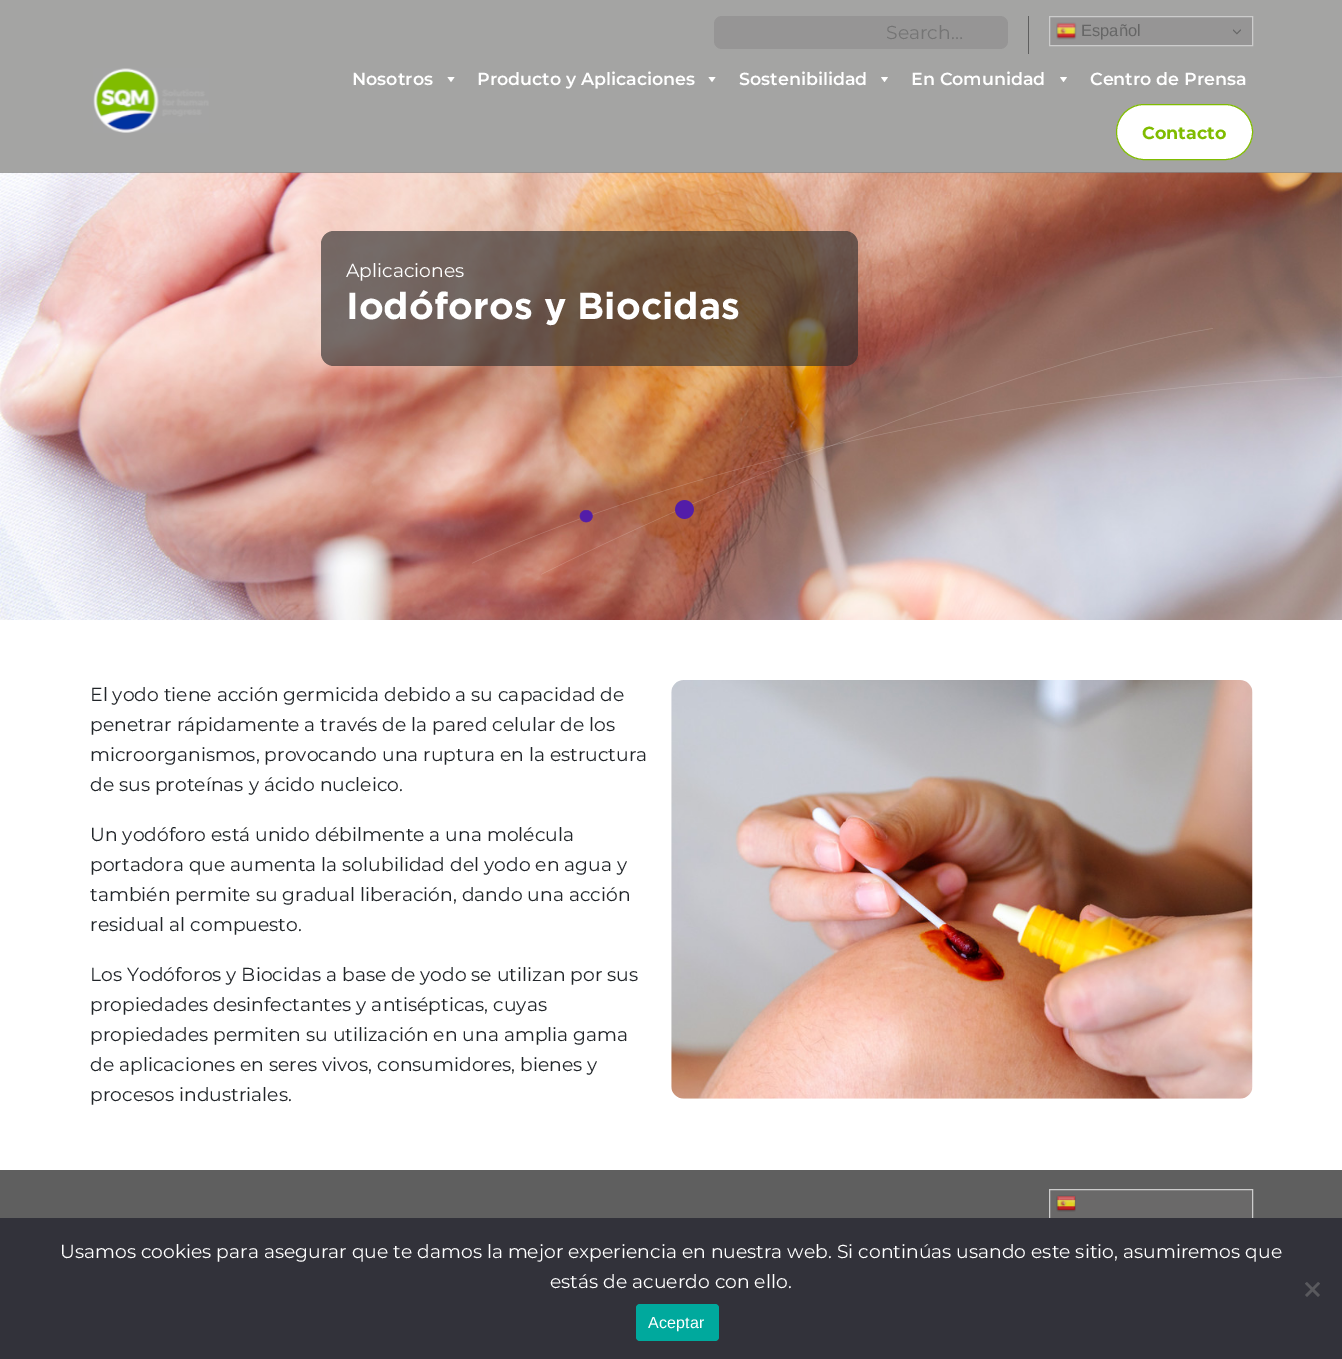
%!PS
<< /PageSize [1342 1359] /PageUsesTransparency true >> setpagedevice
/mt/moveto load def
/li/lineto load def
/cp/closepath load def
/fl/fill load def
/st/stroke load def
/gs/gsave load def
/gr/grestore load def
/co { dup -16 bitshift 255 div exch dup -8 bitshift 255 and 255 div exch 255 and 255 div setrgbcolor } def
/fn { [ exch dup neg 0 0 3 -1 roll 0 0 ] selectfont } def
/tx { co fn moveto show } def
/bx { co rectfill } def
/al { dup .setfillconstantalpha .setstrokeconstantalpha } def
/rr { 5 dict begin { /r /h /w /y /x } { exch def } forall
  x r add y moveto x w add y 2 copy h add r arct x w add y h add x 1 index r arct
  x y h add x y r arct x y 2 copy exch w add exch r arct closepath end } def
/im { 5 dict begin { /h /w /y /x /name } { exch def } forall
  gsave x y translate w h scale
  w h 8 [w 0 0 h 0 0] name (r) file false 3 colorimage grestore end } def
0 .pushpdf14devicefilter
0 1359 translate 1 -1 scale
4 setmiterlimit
0 0 1342 1359 16#FFFFFF bx
(media/4.raw) 0 172 1342 448 im
0.5 al
0 0 1342 173 16#494948 bx
1 al
16#969595 co
714 16 294 33 8 rr fl
1028 16 1 38 16#5F5F5F bx
16#969595 co
1049.5 16.5 mt 1252.5 16.5 li 1252.5 45.5 li 1049.5 45.5 li cp gs fl gr
16#CCCCCC co
st
(media/1.raw) 1056 22 21 18 im
(media/2.raw) 1233 29 8 6 im
(media/3.raw) 93 68 116 65 im
16#FFFFFF co
454.5 77 mt 451 82 li 447.5 77 li cp fl
715.5 77 mt 712 82 li 708.5 77 li cp fl
888 77 mt 884.5 82 li 881 77 li cp fl
1067 77 mt 1063.5 82 li 1060 77 li cp fl
1116.5 104.5 136 55 27.5 rr gs fl gr
16#80BC00 co
st
(media/5.raw) 472 328 870 247 im
0.65 al
16#302F2F co
321 231 537 135 13 rr fl
1 al
(media/6.raw) 671 680 582 419 im
0 1170 1342 48 16#5F5F5F bx
16#6A6969 co
1049.5 1189.5 mt 1252.5 1189.5 li 1252.5 1218.5 li 1049.5 1218.5 li cp gs fl gr
16#CCCCCC co
st
(media/7.raw) 1056 1195 20 17 im
0 1218 1342 141 16#32323A bx
16#59595D co
1318 1282 mt 1320 1283.5 li 1307 1297 li 1305 1295 li cp fl
1305 1283.5 mt 1307 1282 li 1320 1295 li 1318 1297 li cp fl
16#00A99D co
636 1304 83 37 4 rr fl
(Search…) 886 39 /Montserrat-Regular 18.75 16#757575 tx
(Español) 1081 36 /LiberationSans-Regular 16.5 16#666666 tx
(Nosotros) 352 85 /Montserrat-SemiBold 17.5 16#FFFFFF tx
(Producto y Aplicaciones) 477 85 /Montserrat-SemiBold 17.5 16#FFFFFF tx
(Sostenibilidad) 739 85 /Montserrat-SemiBold 17.5 16#FFFFFF tx
(En Comunidad) 911 85 /Montserrat-SemiBold 17.5 16#FFFFFF tx
(Centro de Prensa) 1090 85 /Montserrat-SemiBold 17.5 16#FFFFFF tx
(Contacto) 1142 139 /Montserrat-Bold 17.5 16#80BC00 tx
(Aplicaciones) 346 277 /Montserrat-Regular 18.75 16#FFFFFF tx
(Iodóforos y Biocidas) 346 319 /Gotham-Bold 37.5 16#FFFFFF tx
(El yodo tiene acción germicida debido a su capacidad de) 90 701 /Montserrat-Regular 18.75 16#212529 tx
(penetrar rápidamente a través de la pared celular de los) 90 731 /Montserrat-Regular 18.75 16#212529 tx
(microorganismos, provocando una ruptura en la estructura) 90 761 /Montserrat-Regular 18.75 16#212529 tx
(de sus proteínas y ácido nucleico.) 90 791 /Montserrat-Regular 18.75 16#212529 tx
(Un yodóforo está unido débilmente a una molécula) 90 841 /Montserrat-Regular 18.75 16#212529 tx
(portadora que aumenta la solubilidad del yodo en agua y) 90 871 /Montserrat-Regular 18.75 16#212529 tx
(también permite su gradual liberación, dando una acción) 90 901 /Montserrat-Regular 18.75 16#212529 tx
(residual al compuesto.) 90 931 /Montserrat-Regular 18.75 16#212529 tx
(Los Yodóforos y Biocidas a base de yodo se utilizan por sus) 90 981 /Montserrat-Regular 18.75 16#212529 tx
(propiedades desinfectantes y antisépticas, cuyas) 90 1011 /Montserrat-Regular 18.75 16#212529 tx
(propiedades permiten su utilización en una amplia gama) 90 1041 /Montserrat-Regular 18.75 16#212529 tx
(de aplicaciones en seres vivos, consumidores, bienes y) 90 1071 /Montserrat-Regular 18.75 16#212529 tx
(procesos industriales.) 90 1101 /Montserrat-Regular 18.75 16#212529 tx
(Usamos cookies para asegurar que te damos la mejor experiencia en nuestra web. Si continúas usando este sitio, asumiremos que) 60 1258 /Montserrat-Regular 18.75 16#FFFFFF tx
(estás de acuerdo con ello.) 550 1288 /Montserrat-Regular 18.75 16#FFFFFF tx
/LiberationSans-Regular 16 fn
648 1328 mt .25 0 (Aceptar) ashow
.poppdf14devicefilter showpage
